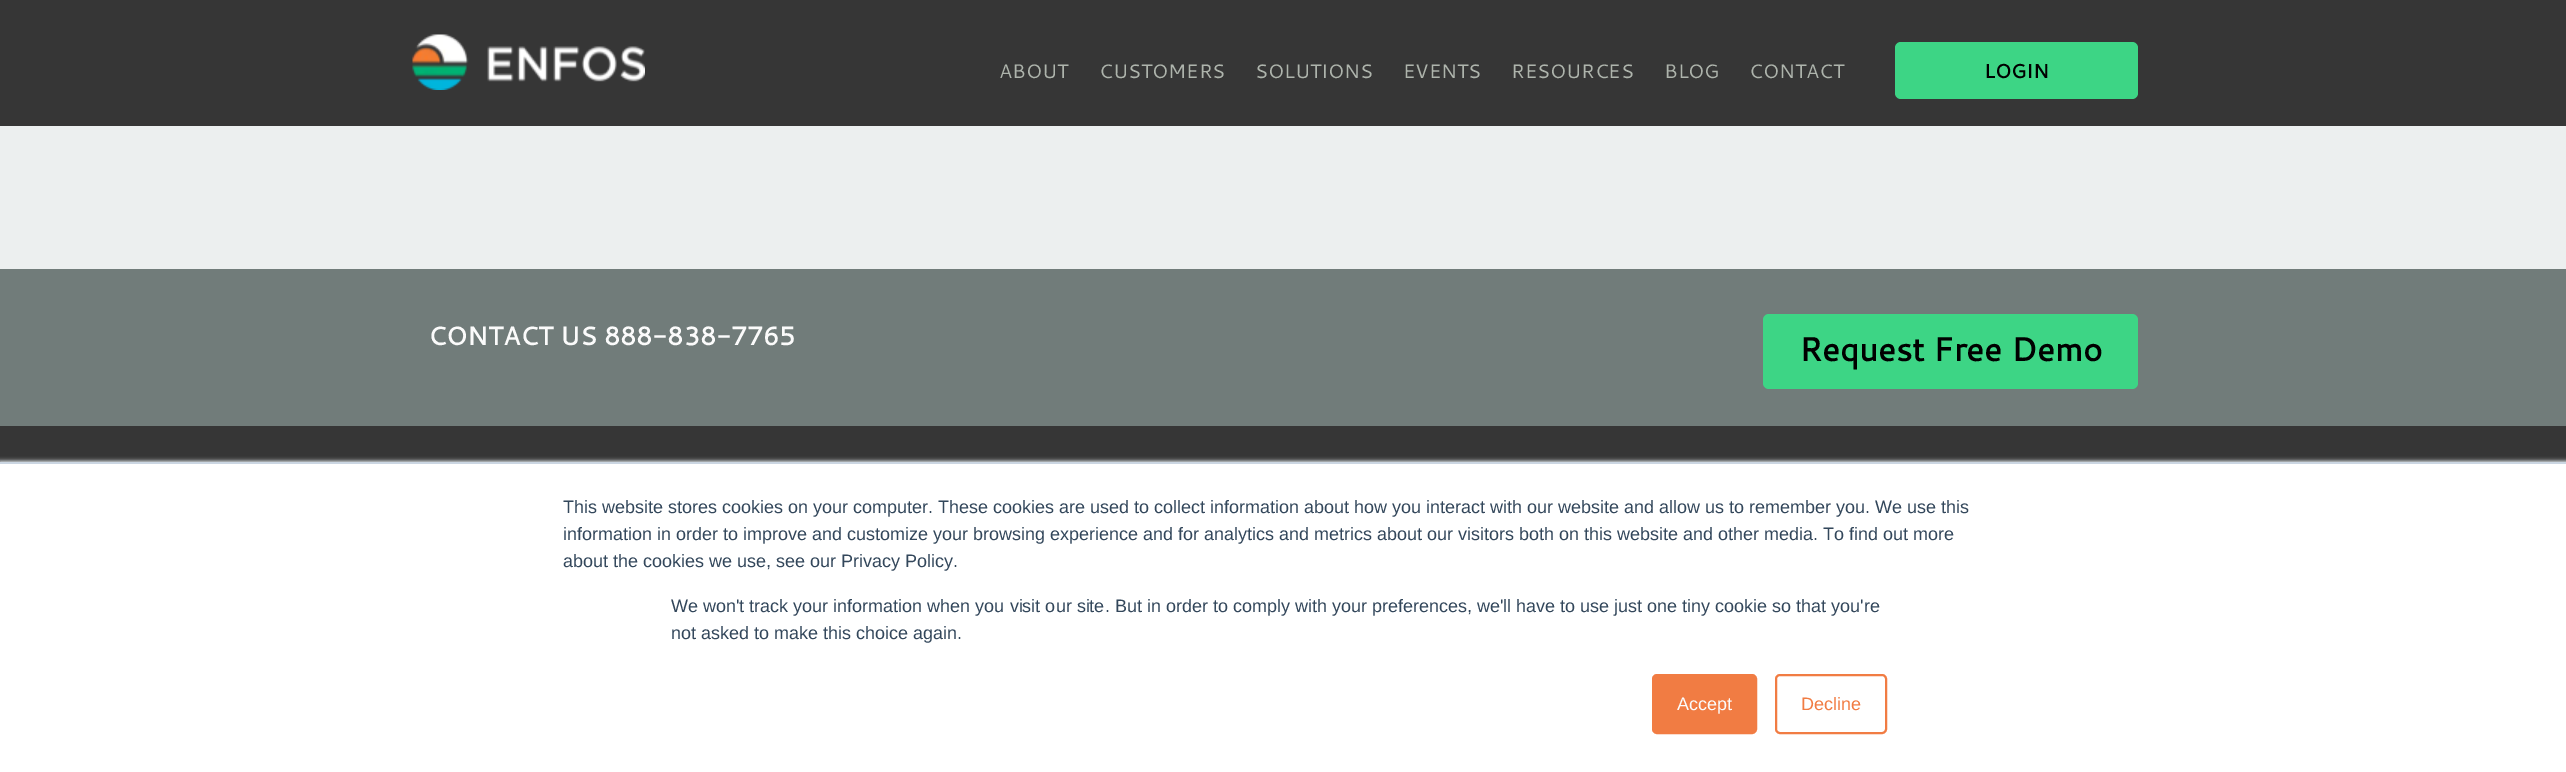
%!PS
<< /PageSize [2566 772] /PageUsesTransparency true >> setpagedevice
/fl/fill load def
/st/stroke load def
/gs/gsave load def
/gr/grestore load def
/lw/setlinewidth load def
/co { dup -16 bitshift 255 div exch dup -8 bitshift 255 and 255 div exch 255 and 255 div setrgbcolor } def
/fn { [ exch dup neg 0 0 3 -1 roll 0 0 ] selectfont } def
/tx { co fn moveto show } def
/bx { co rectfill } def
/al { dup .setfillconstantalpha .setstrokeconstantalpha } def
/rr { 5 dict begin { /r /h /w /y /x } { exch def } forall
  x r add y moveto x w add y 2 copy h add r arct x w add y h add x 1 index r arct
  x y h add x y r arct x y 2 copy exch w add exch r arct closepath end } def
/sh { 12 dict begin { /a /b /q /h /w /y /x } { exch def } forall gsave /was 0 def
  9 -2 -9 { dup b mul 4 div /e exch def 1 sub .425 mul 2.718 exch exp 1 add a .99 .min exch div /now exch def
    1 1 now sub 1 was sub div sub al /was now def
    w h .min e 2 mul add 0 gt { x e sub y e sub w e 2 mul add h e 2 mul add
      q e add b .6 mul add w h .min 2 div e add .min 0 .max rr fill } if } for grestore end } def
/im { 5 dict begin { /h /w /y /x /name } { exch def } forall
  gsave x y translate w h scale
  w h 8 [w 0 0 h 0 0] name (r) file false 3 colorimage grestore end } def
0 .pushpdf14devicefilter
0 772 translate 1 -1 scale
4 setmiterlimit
0 0 2566 772 16#ECEFEF bx
0 0 2566 126 16#363636 bx
(media/1.raw) 412 34 233 56 im
16#3DD585 co
1895 42 243 57 6 rr fl
0 269 2566 157 16#717C7A bx
16#3DD585 co
1763 314 375 75 6 rr fl
0 426 2566 36 16#363636 bx
16#EAF0F6 co
0 461 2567 310 0 2 1 sh
0 464 2566 308 16#FFFFFF bx
0 462 2566 2 16#CBD6E2 bx
16#F17C43 co
1653 675 103 58 4 rr gs fl gr
2 lw
st
1776 675 110 58 4 rr st
(ABOUT) 999 78 /Cantarell-Regular 19.5 16#AEB4AC tx
(CUSTOMERS) 1099 78 /Cantarell-Regular 19.5 16#AEB4AC tx
(SOLUTIONS) 1255 78 /Cantarell-Regular 19.5 16#AEB4AC tx
(EVENTS) 1403 78 /Cantarell-Regular 19.5 16#AEB4AC tx
(RESOURCES) 1511 78 /Cantarell-Regular 19.5 16#AEB4AC tx
(BLOG) 1664 78 /Cantarell-Regular 19.5 16#AEB4AC tx
(CONTACT) 1749 78 /Cantarell-Regular 19.5 16#AEB4AC tx
(LOGIN) 1984 78 /Cantarell-Bold 19.5 16#000000 tx
(CONTACT US 888-838-7765) 428 345 /Cantarell-Bold 25.5 16#FBFBFB tx
(Request Free Demo) 1799 361 /Cantarell-Bold 33 16#000000 tx
(This website stores cookies on your computer. These cookies are used to collect information about how you interact with our website and allow us to remember you. We use this) 563 513 /LiberationSans-Regular 18 16#33475B tx
(information in order to improve and customize your browsing experience and for analytics and metrics about our visitors both on this website and other media. To find out more) 563 540 /LiberationSans-Regular 18 16#33475B tx
(about the cookies we use, see our Privacy Policy.) 563 567 /LiberationSans-Regular 18 16#33475B tx
(We won't track your information when you visit our site. But in order to comply with your preferences, we'll have to use just one tiny cookie so that you're) 671 612 /LiberationSans-Regular 18 16#33475B tx
(not asked to make this choice again.) 671 639 /LiberationSans-Regular 18 16#33475B tx
(Accept) 1677 710 /LiberationSans-Regular 18 16#FBFBFB tx
(Decline) 1801 710 /LiberationSans-Regular 18 16#F17C43 tx
.poppdf14devicefilter showpage
